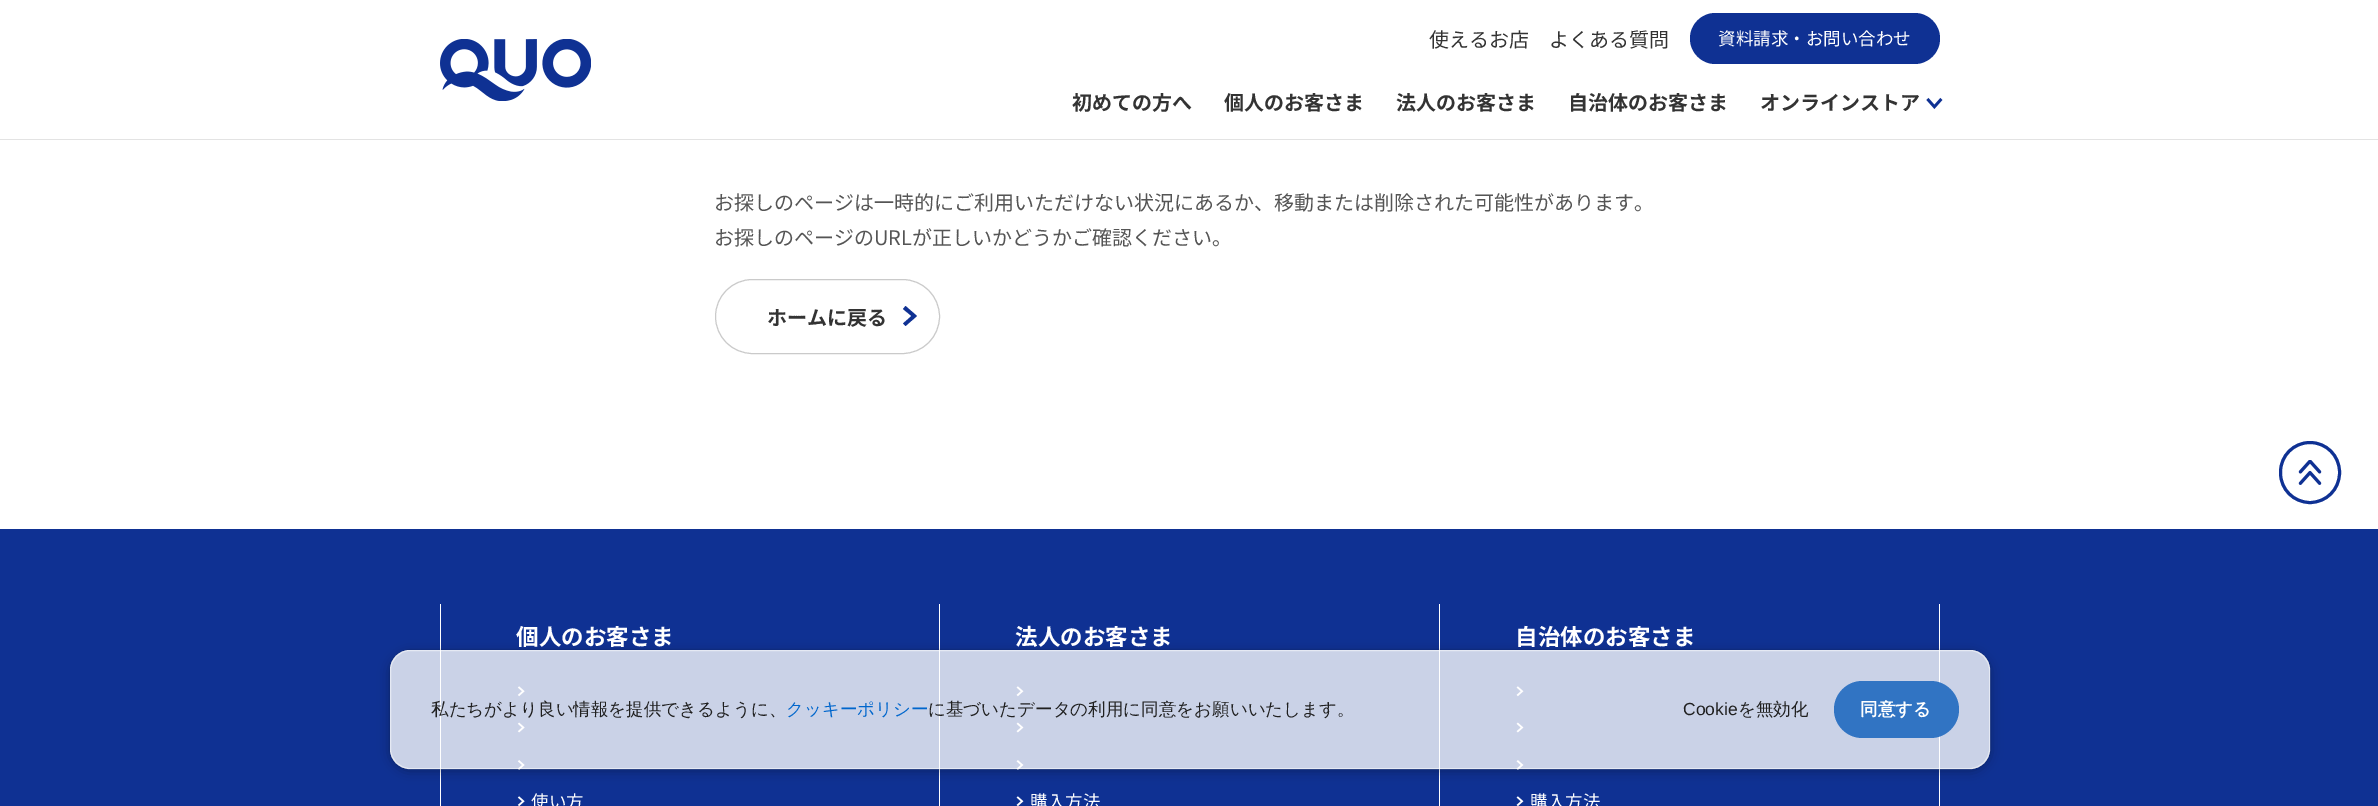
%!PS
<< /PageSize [2378 806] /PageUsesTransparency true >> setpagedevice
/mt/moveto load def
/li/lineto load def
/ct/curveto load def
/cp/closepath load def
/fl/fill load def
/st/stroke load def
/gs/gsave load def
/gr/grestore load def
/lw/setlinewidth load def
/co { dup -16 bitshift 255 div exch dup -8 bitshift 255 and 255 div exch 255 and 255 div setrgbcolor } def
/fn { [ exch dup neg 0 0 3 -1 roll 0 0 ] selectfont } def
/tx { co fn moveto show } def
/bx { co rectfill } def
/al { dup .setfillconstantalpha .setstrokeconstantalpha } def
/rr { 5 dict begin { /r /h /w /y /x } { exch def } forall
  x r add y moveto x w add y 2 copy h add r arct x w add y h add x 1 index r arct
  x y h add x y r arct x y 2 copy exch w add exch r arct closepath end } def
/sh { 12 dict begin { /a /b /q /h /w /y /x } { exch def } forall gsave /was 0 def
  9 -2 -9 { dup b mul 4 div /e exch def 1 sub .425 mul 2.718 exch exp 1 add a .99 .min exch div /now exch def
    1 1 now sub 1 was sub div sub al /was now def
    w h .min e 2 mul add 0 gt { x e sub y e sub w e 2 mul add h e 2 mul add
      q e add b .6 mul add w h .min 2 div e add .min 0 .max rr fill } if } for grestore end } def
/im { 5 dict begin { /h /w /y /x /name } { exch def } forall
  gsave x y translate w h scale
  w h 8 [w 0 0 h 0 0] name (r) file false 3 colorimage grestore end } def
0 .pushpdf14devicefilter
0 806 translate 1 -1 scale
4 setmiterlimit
0 0 2378 806 16#FFFFFF bx
0 139 2378 1 16#E3E3E3 bx
(media/1.raw) 440 39 151 62 im
16#0F3193 co
1690 13 250 51 25.5 rr fl
(media/2.raw) 1926 97 17 12 im
16#CACACA co
715.5 279.5 224 74 37 rr st
16#0F3193 co
903 309 mt 911.5 316 li 903 323.5 li 905.5 326 li 917 316 li 905.5 306 li cp fl
3 lw
2280.5 442.5 59 60 29.5 rr st
(media/3.raw) 2298 460 24 25 im
0 529 2378 277 16#0F3193 bx
1939 604 1 202 16#FFFFFF bx
440 604 1 202 16#FFFFFF bx
(media/4.raw) 517 686 8 11 im
(media/5.raw) 517 722 8 11 im
(media/6.raw) 517 760 8 10 im
(media/7.raw) 517 796 8 10 im
939 604 1 202 16#FFFFFF bx
(media/8.raw) 1016 686 8 11 im
(media/9.raw) 1016 722 8 11 im
(media/10.raw) 1016 760 8 10 im
(media/11.raw) 1016 796 8 10 im
1439 604 1 202 16#FFFFFF bx
(media/8.raw) 1516 686 8 11 im
(media/9.raw) 1516 722 8 11 im
(media/10.raw) 1516 760 8 10 im
(media/11.raw) 1516 796 8 10 im
gs
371 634 mt 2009 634 li 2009 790 li 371 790 li cp 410 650 mt 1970 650 li 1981 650 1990 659 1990 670 ct 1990 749 li 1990 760 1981 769 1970 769 ct 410 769 li 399 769 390 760 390 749 ct 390 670 li 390 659 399 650 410 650 ct cp eoclip newpath
16#000000 co
390 653 1600 118 20 6 .3 sh
gr
gs
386 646 mt 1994 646 li 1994 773 li 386 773 li cp 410 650 mt 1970 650 li 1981 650 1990 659 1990 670 ct 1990 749 li 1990 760 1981 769 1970 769 ct 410 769 li 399 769 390 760 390 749 ct 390 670 li 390 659 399 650 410 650 ct cp eoclip newpath
16#000000 co
390 650 1600 119 20 1 .15 sh
gr
0.78 al
390 650 1600 119 20 rr fl
0.5 al
1 lw
390.5 650.5 1599 118 19.5 rr st
1 al
16#3174C3 co
1834 681 125 57 28.5 rr fl
(使えるお店) 1429 47 /NotoSansJP-Regular 20 16#333333 tx
(よくある質問) 1549 47 /NotoSansJP-Regular 20 16#333333 tx
(資料請求・お問い合わせ) 1718 45 /NotoSansJP-Regular 17.5 16#FFFFFF tx
(初めての方へ) 1072 110 /NotoSansJP-Bold 20 16#333333 tx
(個人のお客さま) 1224 110 /NotoSansJP-Bold 20 16#333333 tx
(法人のお客さま) 1396 110 /NotoSansJP-Bold 20 16#333333 tx
(自治体のお客さま) 1568 110 /NotoSansJP-Bold 20 16#333333 tx
(オンラインストア) 1760 110 /NotoSansJP-Bold 20 16#333333 tx
(お探しのページは一時的にご利用いただけない状況にあるか、移動または削除された可能性があります。) 714 210 /NotoSansJP-Regular 20 16#555555 tx
(お探しのページのURLが正しいかどうかご確認ください。) 714 245 /NotoSansJP-Regular 20 16#555555 tx
(ホームに戻る) 767 325 /NotoSansJP-Bold 20 16#333333 tx
(個人のお客さま) 516 645 /NotoSansJP-Bold 22.5 16#FFFFFF tx
(使い方) 531 808 /NotoSansJP-Regular 17.5 16#FFFFFF tx
(法人のお客さま) 1015 645 /NotoSansJP-Bold 22.5 16#FFFFFF tx
(購入方法) 1030 808 /NotoSansJP-Regular 17.5 16#FFFFFF tx
(自治体のお客さま) 1515 645 /NotoSansJP-Bold 22.5 16#FFFFFF tx
(購入方法) 1530 808 /NotoSansJP-Regular 17.5 16#FFFFFF tx
(私たちがより良い情報を提供できるように、) 431 715 /WenQuanYiZenHei-Medium 17.5 16#202020 tx
(クッキーポリシー) 786 715 /WenQuanYiZenHei-Medium 17.5 16#0066CC tx
(に基づいたデータの利用に同意をお願いいたします。) 928 715 /WenQuanYiZenHei-Medium 17.5 16#202020 tx
(Cookie) 1683 715 /LiberationSans-Regular 17.5 16#202020 tx
(を無効化) 1738 715 /WenQuanYiZenHei-Medium 17.5 16#202020 tx
(同意する) 1860 715 /WenQuanYiZenHei-Bold 17.5 16#FFFFFF tx
.poppdf14devicefilter showpage
